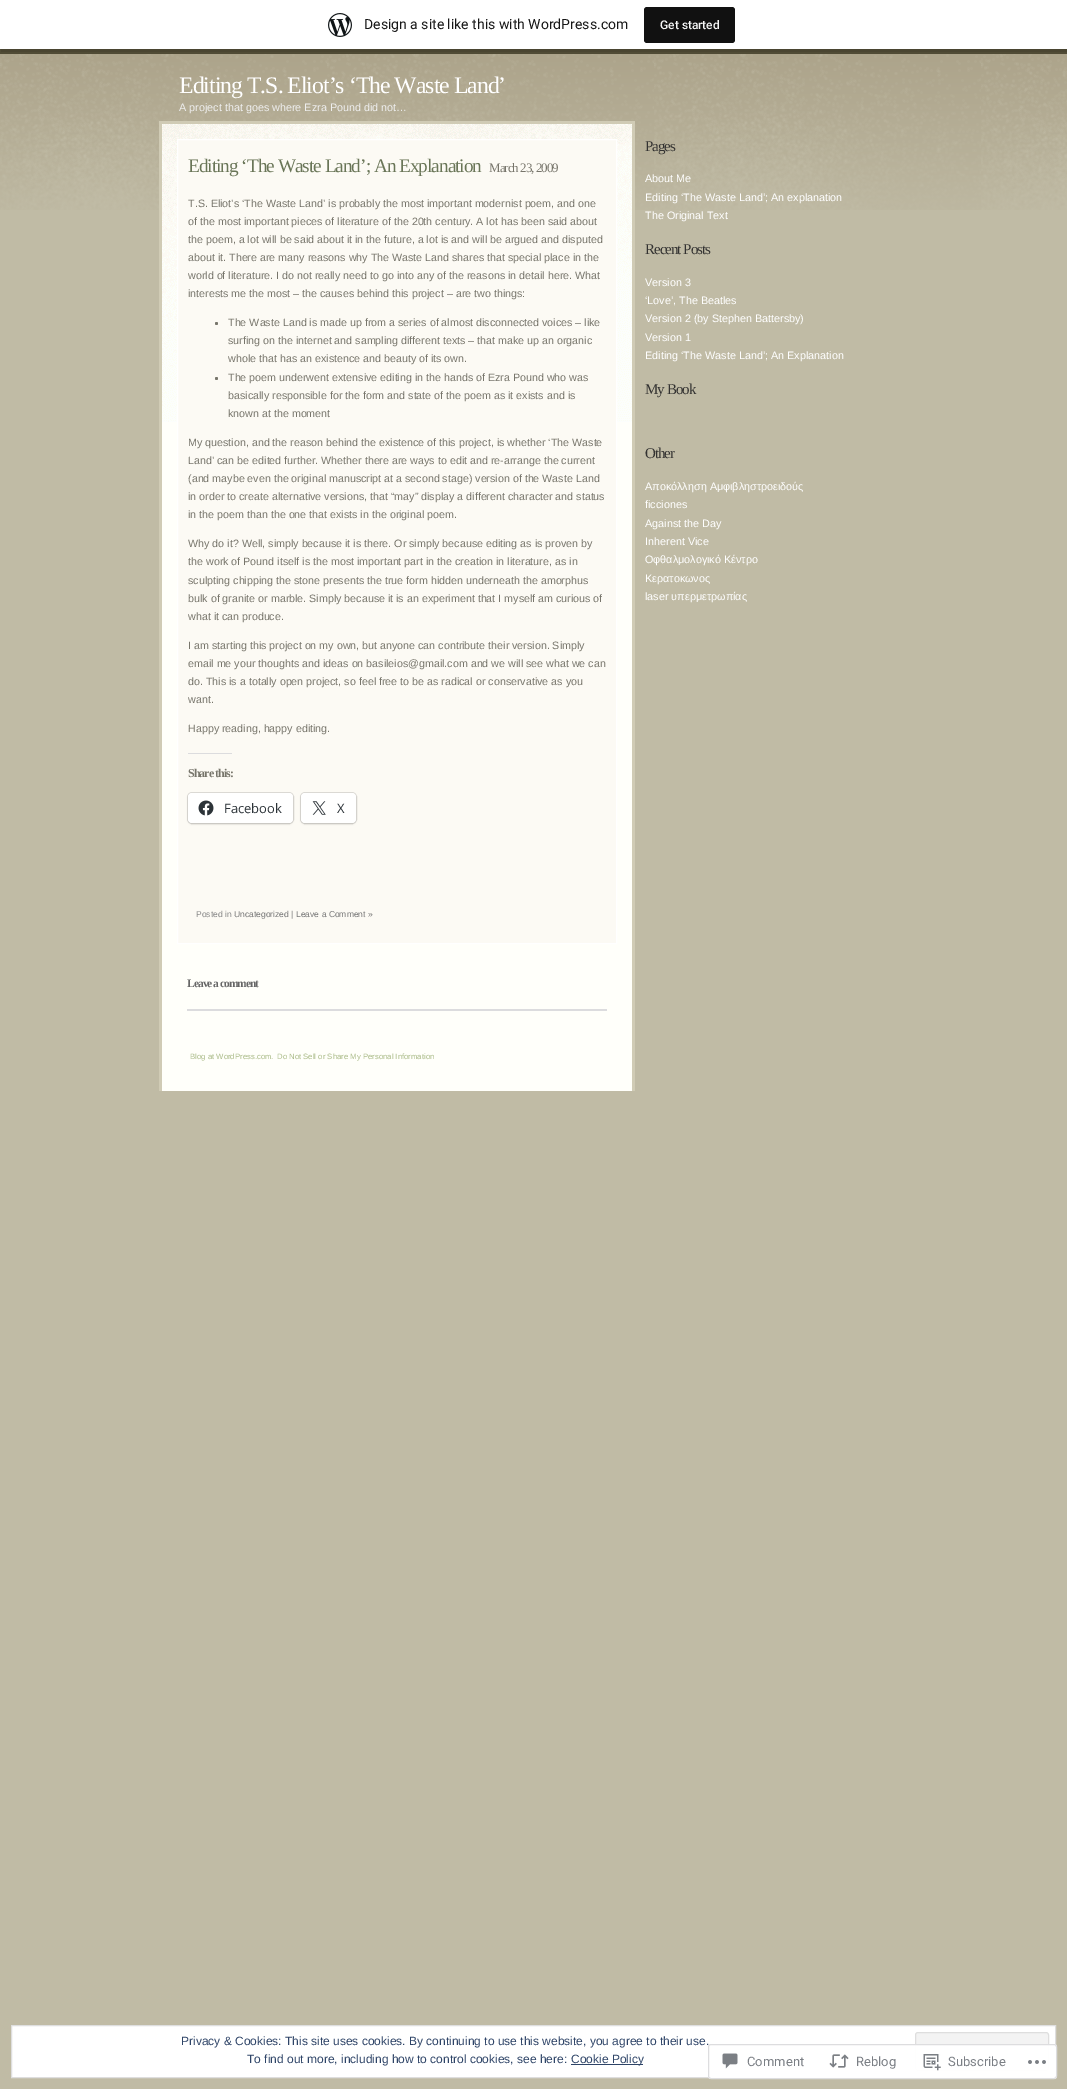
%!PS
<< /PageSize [1067 2089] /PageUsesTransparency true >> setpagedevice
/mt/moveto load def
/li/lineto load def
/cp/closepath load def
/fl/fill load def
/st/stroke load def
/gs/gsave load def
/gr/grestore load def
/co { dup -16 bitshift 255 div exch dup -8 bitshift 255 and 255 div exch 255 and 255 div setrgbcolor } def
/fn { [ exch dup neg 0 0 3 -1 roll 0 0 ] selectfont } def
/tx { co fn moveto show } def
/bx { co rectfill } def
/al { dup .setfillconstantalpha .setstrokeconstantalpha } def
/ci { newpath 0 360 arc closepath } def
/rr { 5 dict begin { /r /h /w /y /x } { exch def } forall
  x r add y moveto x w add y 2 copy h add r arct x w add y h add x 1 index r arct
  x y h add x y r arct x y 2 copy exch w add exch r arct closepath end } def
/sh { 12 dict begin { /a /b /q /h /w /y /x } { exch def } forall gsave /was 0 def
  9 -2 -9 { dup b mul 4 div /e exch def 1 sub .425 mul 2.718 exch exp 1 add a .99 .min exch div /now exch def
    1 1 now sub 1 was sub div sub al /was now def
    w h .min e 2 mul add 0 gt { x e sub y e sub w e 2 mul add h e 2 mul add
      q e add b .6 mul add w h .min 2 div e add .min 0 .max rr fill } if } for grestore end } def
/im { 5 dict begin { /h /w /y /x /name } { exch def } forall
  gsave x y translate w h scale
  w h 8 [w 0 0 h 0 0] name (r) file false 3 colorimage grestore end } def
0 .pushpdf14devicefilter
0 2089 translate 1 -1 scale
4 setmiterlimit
0 0 1067 2089 16#C0BBA5 bx
(media/1.raw) 0 54 1067 156 im
0 49 1067 5 16#504B35 bx
0.08 al
16#000000 co
1 49 mt 1 52 li 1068 52 li 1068 3 li 1067 3 li 1067 49 li cp fl
1 al
0 0 1067 49 16#FFFFFF bx
(media/2.raw) 328 13 24 24 im
16#111111 co
644 7 91 36 3 rr fl
162 422 470 669 16#FFFFFA bx
(media/3.raw) 162 124 470 298 im
159 121 476 3 16#D0CBB5 bx
632 121 3 970 16#D0CBB5 bx
159 121 3 970 16#D0CBB5 bx
16#FCFAF4 co
177.5 139.5 mt 616.5 139.5 li 616.5 943.5 li 177.5 943.5 li cp gs fl gr
16#FFFFFF co
st
16#77756B co
216.5 323.5 1.5 ci fl
216.5 378.5 1.5 ci fl
188 753 44 1 16#DCDCDE bx
16#DEDCD7 co
187.5 792.5 106 31 4.5 rr st
16#000000 co
188 794 105 30 4 1 .12 sh
16#FFFFFF co
188 793 105 30 4 rr fl
(media/4.raw) 198 800 16 16 im
16#DEDCD7 co
300.5 792.5 56 31 4.5 rr st
16#000000 co
301 794 55 30 4 1 .12 sh
16#FFFFFF co
301 793 55 30 4 rr fl
(media/5.raw) 312 801 14 14 im
187 1009 420 2 16#DCDCDE bx
16#FFFFFF co
11.5 2025.5 mt 1055.5 2025.5 li 1055.5 2077.5 li 11.5 2077.5 li cp gs fl gr
16#DEDEDE co
st
16#F3F3F3 co
915.5 2032.5 133 38 2.5 rr gs fl gr
16#DEDEDE co
st
571 2064 72 1 16#2E4467 bx
(Design a site like this with WordPress.com) 364 29 /Roboto-Regular 14 16#171717 tx
(Get started) 660 29 /Roboto-Medium 12 16#F6F7F7 tx
/LiberationSerif-Regular 23.75 fn
16#FFFFFF co
179 93 mt -1 0 (Editing T.S. Eliot’s ‘The Waste Land’) ashow
(A project that goes where Ezra Pound did not…) 179 111 /LiberationSans-Regular 10.8 16#EEEEEE tx
/LiberationSerif-Regular 19.25 fn
16#697557 co
188 172 mt -1 0 (Editing ‘The Waste Land’; An Explanation) ashow
/LiberationSerif-Regular 13 fn
16#77756B co
489 172 mt -1 0 (March 23, 2009) ashow
(T.S. Eliot’s ‘The Waste Land’ is probably the most important modernist poem, and one) 188 207 /LiberationSans-Regular 10.7 16#77756B tx
(of the most important pieces of literature of the 20th century. A lot has been said about) 188 225 /LiberationSans-Regular 10.7 16#77756B tx
(the poem, a lot will be said about it in the future, a lot is and will be argued and disputed) 188 243 /LiberationSans-Regular 10.7 16#77756B tx
(about it. There are many reasons why The Waste Land shares that special place in the) 188 261 /LiberationSans-Regular 10.7 16#77756B tx
(world of literature. I do not really need to go into any of the reasons in detail here. What) 188 279 /LiberationSans-Regular 10.7 16#77756B tx
(interests me the most – the causes behind this project – are two things:) 188 297 /LiberationSans-Regular 10.7 16#77756B tx
(The Waste Land is made up from a series of almost disconnected voices – like) 228 326 /LiberationSans-Regular 10.7 16#77756B tx
(surfing on the internet and sampling different texts – that make up an organic) 228 344 /LiberationSans-Regular 10.7 16#77756B tx
(whole that has an existence and beauty of its own.) 228 362 /LiberationSans-Regular 10.7 16#77756B tx
(The poem underwent extensive editing in the hands of Ezra Pound who was) 228 381 /LiberationSans-Regular 10.7 16#77756B tx
(basically responsible for the form and state of the poem as it exists and is) 228 399 /LiberationSans-Regular 10.7 16#77756B tx
(known at the moment) 228 417 /LiberationSans-Regular 10.7 16#77756B tx
(My question, and the reason behind the existence of this project, is whether ‘The Waste) 188 446 /LiberationSans-Regular 10.7 16#77756B tx
(Land’ can be edited further. Whether there are ways to edit and re-arrange the current) 188 464 /LiberationSans-Regular 10.7 16#77756B tx
(\(and maybe even the original manuscript at a second stage\) version of the Waste Land) 188 482 /LiberationSans-Regular 10.7 16#77756B tx
(in order to create alternative versions, that “may” display a different character and status) 188 500 /LiberationSans-Regular 10.7 16#77756B tx
(in the poem than the one that exists in the original poem.) 188 518 /LiberationSans-Regular 10.7 16#77756B tx
(Why do it? Well, simply because it is there. Or simply because editing as is proven by) 188 547 /LiberationSans-Regular 10.7 16#77756B tx
(the work of Pound itself is the most important part in the creation in literature, as in) 188 565 /LiberationSans-Regular 10.7 16#77756B tx
(sculpting chipping the stone presents the true form hidden underneath the amorphus) 188 584 /LiberationSans-Regular 10.7 16#77756B tx
(bulk of granite or marble. Simply because it is an experiment that I myself am curious of) 188 602 /LiberationSans-Regular 10.7 16#77756B tx
(what it can produce.) 188 620 /LiberationSans-Regular 10.7 16#77756B tx
(I am starting this project on my own, but anyone can contribute their version. Simply) 188 649 /LiberationSans-Regular 10.7 16#77756B tx
(email me your thoughts and ideas on basileios@gmail.com and we will see what we can) 188 667 /LiberationSans-Regular 10.7 16#77756B tx
(do. This is a totally open project, so feel free to be as radical or conservative as you) 188 685 /LiberationSans-Regular 10.7 16#77756B tx
(want.) 188 703 /LiberationSans-Regular 10.7 16#77756B tx
(Happy reading, happy editing.) 188 732 /LiberationSans-Regular 10.7 16#77756B tx
/LiberationSerif-Bold 12 fn
188 777 mt -1 0 (Share this:) ashow
(Facebook) 224 813 /OpenSans-Regular 13 16#2C3338 tx
(X) 337 813 /OpenSans-Regular 13 16#2C3338 tx
(Posted in) 196 917 /LiberationSans-Regular 8.5 16#888888 tx
(Uncategorized) 234 917 /LiberationSans-Regular 8.5 16#777777 tx
(|) 291 917 /LiberationSans-Regular 8.5 16#888888 tx
(Leave a Comment ») 296 917 /LiberationSans-Regular 8.5 16#777777 tx
/LiberationSerif-Bold 11.5 fn
16#666666 co
187 987 mt -1 0 (Leave a comment) ashow
(Blog at WordPress.com.) 190 1059 /LiberationSans-Regular 7.75 16#AABB88 tx
(Do Not Sell or Share My Personal Information) 277 1059 /LiberationSans-Regular 7.75 16#AABB88 tx
/LiberationSerif-Regular 15 fn
16#333231 co
645 151 mt -1 0 (Pages) ashow
(About Me) 645 182 /LiberationSans-Regular 10.8 16#FFFFFF tx
(Editing ‘The Waste Land’; An explanation) 645 201 /LiberationSans-Regular 10.8 16#FFFFFF tx
(The Original Text) 645 219 /LiberationSans-Regular 10.8 16#FFFFFF tx
/LiberationSerif-Regular 15 fn
16#333231 co
645 254 mt -1 0 (Recent Posts) ashow
(Version 3) 645 286 /LiberationSans-Regular 10.8 16#FFFFFF tx
(‘Love’, The Beatles) 645 304 /LiberationSans-Regular 10.8 16#FFFFFF tx
(Version 2 \(by Stephen Battersby\)) 645 322 /LiberationSans-Regular 10.8 16#FFFFFF tx
(Version 1) 645 341 /LiberationSans-Regular 10.8 16#FFFFFF tx
(Editing ‘The Waste Land’; An Explanation) 645 359 /LiberationSans-Regular 10.8 16#FFFFFF tx
/LiberationSerif-Regular 15 fn
16#333231 co
645 394 mt -1 0 (My Book) ashow
645 458 mt -1 0 (Other) ashow
(Αποκόλληση Αμφιβληστροειδούς) 645 490 /LiberationSans-Regular 10.8 16#FFFFFF tx
(ficciones) 645 508 /LiberationSans-Regular 10.8 16#FFFFFF tx
(Against the Day) 645 527 /LiberationSans-Regular 10.8 16#FFFFFF tx
(Inherent Vice) 645 545 /LiberationSans-Regular 10.8 16#FFFFFF tx
(Οφθαλμολογικό Κέντρο) 645 563 /LiberationSans-Regular 10.8 16#FFFFFF tx
(Κερατοκωνος) 645 582 /LiberationSans-Regular 10.8 16#FFFFFF tx
(laser υπερμετρωπίας) 645 600 /LiberationSans-Regular 10.8 16#FFFFFF tx
(Privacy & Cookies: This site uses cookies. By continuing to use this website, you agree to their use.) 181 2045 /LiberationSans-Regular 12 16#2E4467 tx
(To find out more, including how to control cookies, see here:) 247 2063 /LiberationSans-Regular 12 16#2E4467 tx
(Cookie Policy) 571 2063 /LiberationSans-Regular 12 16#2E4467 tx
0.98 al
16#FFFFFF co
708 2044 349 35 3 rr fl
16#DCDCDE co
708.5 2044.5 348 34 2.5 rr st
1 al
(media/6.raw) 722 2053 16 16 im
(Comment) 747 2066 /Roboto-Regular 13 16#7B7F85 tx
(media/7.raw) 829 2054 20 14 im
(Reblog) 856 2066 /Roboto-Regular 13 16#7B7F85 tx
(media/8.raw) 923 2054 18 17 im
(Subscribe) 948 2066 /Roboto-Regular 13 16#7B7F85 tx
(media/9.raw) 1028 2060 18 4 im
.poppdf14devicefilter showpage
